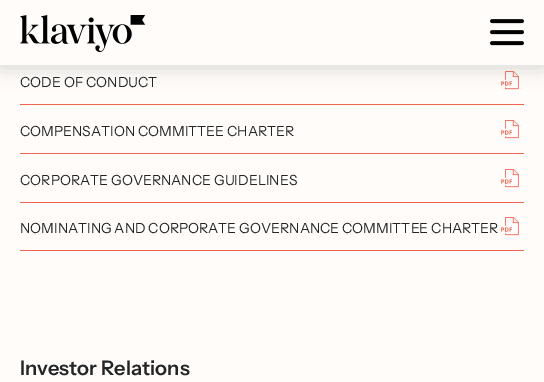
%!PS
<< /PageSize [544 382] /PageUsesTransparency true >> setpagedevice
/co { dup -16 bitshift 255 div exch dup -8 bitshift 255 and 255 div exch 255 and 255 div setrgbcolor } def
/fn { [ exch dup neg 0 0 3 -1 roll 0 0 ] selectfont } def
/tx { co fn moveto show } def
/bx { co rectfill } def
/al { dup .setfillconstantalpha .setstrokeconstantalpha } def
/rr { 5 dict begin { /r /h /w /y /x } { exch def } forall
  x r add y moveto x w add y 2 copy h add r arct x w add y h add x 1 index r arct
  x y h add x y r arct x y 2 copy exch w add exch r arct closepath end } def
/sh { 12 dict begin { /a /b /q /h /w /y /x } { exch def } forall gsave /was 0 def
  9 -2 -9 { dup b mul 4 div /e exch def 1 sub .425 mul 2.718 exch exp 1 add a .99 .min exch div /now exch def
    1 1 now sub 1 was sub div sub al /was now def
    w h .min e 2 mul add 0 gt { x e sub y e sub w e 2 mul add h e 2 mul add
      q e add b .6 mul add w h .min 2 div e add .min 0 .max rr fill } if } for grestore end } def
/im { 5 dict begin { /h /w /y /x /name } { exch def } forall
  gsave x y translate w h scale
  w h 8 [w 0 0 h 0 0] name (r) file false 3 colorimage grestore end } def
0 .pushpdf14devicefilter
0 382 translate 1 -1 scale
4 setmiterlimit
0 0 544 382 16#FFFCF9 bx
(media/3.raw) 501 71 18 19 im
16#283033 co
0 2 544 65 0 10 .2 sh
0 0 544 65 16#FFFCF9 bx
(media/1.raw) 20 15 126 37 im
(media/2.raw) 490 19 34 27 im
20 104 504 1 16#EF6351 bx
20 153 504 1 16#EF6351 bx
(media/3.raw) 501 120 18 19 im
20 202 504 1 16#EF6351 bx
(media/3.raw) 501 169 18 19 im
20 250 504 1 16#EF6351 bx
(media/3.raw) 501 217 18 19 im
(CODE OF CONDUCT) 20 87 /InstrumentSans-Regular 14 16#232426 tx
(COMPENSATION COMMITTEE CHARTER) 20 136 /InstrumentSans-Regular 14 16#232426 tx
(CORPORATE GOVERNANCE GUIDELINES) 20 185 /InstrumentSans-Regular 14 16#232426 tx
(NOMINATING AND CORPORATE GOVERNANCE COMMITTEE CHARTER) 20 233 /InstrumentSans-Regular 14 16#232426 tx
(Investor Relations) 20 375 /InstrumentSans-SemiBold 20 16#232426 tx
.poppdf14devicefilter showpage
